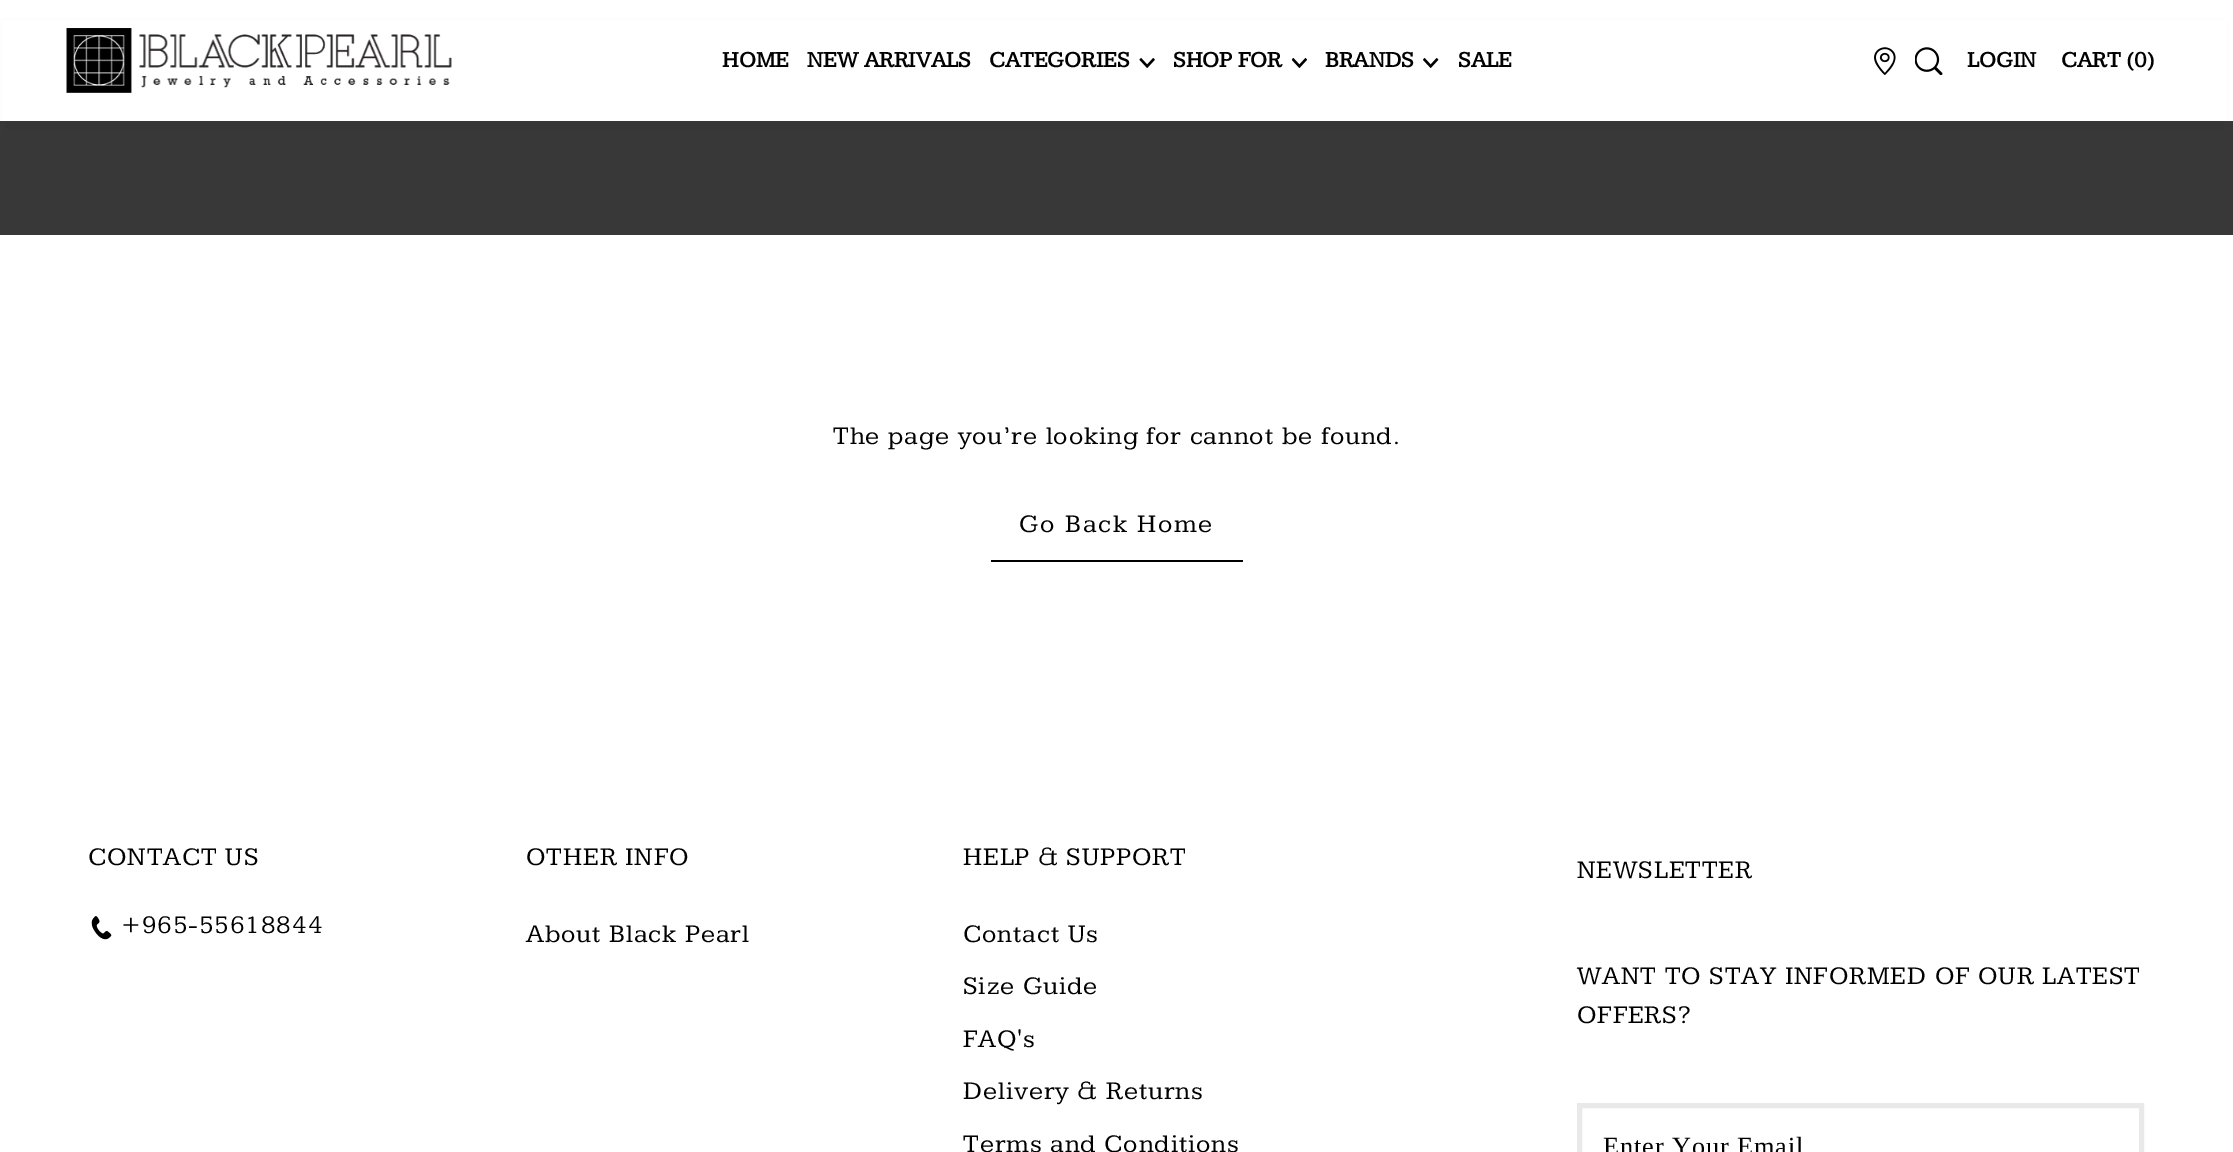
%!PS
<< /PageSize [2233 1152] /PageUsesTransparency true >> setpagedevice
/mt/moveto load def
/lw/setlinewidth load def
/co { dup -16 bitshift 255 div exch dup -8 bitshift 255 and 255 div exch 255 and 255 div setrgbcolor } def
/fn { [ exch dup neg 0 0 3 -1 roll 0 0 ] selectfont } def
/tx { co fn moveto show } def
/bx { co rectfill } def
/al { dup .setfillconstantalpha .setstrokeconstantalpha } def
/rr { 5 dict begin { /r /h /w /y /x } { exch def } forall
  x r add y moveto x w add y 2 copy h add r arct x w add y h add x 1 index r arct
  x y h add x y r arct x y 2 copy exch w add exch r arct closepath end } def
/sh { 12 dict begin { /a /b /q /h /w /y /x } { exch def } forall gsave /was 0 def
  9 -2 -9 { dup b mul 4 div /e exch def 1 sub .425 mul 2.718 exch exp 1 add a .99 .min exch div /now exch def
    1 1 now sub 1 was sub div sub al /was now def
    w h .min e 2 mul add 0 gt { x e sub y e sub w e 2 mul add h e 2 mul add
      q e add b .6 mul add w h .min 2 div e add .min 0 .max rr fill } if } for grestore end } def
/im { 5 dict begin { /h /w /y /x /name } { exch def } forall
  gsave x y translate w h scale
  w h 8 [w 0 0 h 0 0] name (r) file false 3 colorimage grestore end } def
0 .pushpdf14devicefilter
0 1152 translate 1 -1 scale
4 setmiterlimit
0 0 2233 1152 16#FFFFFF bx
0 121 2233 114 16#383838 bx
16#000000 co
5 23 2219 107 0 3.5 .05 sh
2 20 2225 101 16#FFFFFF bx
(media/1.raw) 66 28 386 65 im
(media/2.raw) 1139 58 16 10 im
(media/3.raw) 1292 58 15 10 im
(media/4.raw) 1423 58 16 10 im
(media/5.raw) 1874 47 22 28 im
(media/6.raw) 1915 47 28 28 im
991 560 252 2 16#000000 bx
(media/7.raw) 91 916 21 24 im
16#E9E9E9 co
5 lw
1579.5 1105.5 562 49 rectstroke
(HOME) 722 67 /Kameron-Bold 22.75 16#000000 tx
(NEW ARRIVALS) 807 67 /Kameron-Bold 22.75 16#000000 tx
(CATEGORIES) 989 67 /Kameron-Bold 22.75 16#000000 tx
(SHOP FOR) 1173 67 /Kameron-Bold 22.75 16#000000 tx
(BRANDS) 1325 67 /Kameron-Bold 22.75 16#000000 tx
(SALE) 1458 67 /Kameron-Bold 22.75 16#000000 tx
(LOGIN) 1967 67 /Kameron-Bold 22.75 16#000000 tx
(CART \(0\)) 2061 67 /Kameron-Bold 22.75 16#000000 tx
/Kameron-Regular 26.25 fn
833 444 mt .9 0 (The page you’re looking for cannot be found.) ashow
1019 532 mt 1.75 0 (Go Back Home) ashow
88 865 mt .9 0 (CONTACT US) ashow
121 933 mt .9 0 (+965-55618844) ashow
526 865 mt .9 0 (OTHER INFO) ashow
526 942 mt .9 0 (About Black Pearl) ashow
963 865 mt .9 0 (HELP & SUPPORT) ashow
963 942 mt .9 0 (Contact Us) ashow
963 994 mt .9 0 (Size Guide) ashow
963 1047 mt .9 0 (FAQ's) ashow
963 1099 mt .9 0 (Delivery & Returns) ashow
963 1152 mt .9 0 (Terms and Conditions) ashow
1577 878 mt .9 0 (NEWSLETTER) ashow
1577 984 mt .9 0 (WANT TO STAY INFORMED OF OUR LATEST) ashow
1577 1023 mt .9 0 (OFFERS?) ashow
/LiberationSerif-Regular 26.25 fn
1603 1155 mt .9 0 (Enter Your Email) ashow
.poppdf14devicefilter showpage
